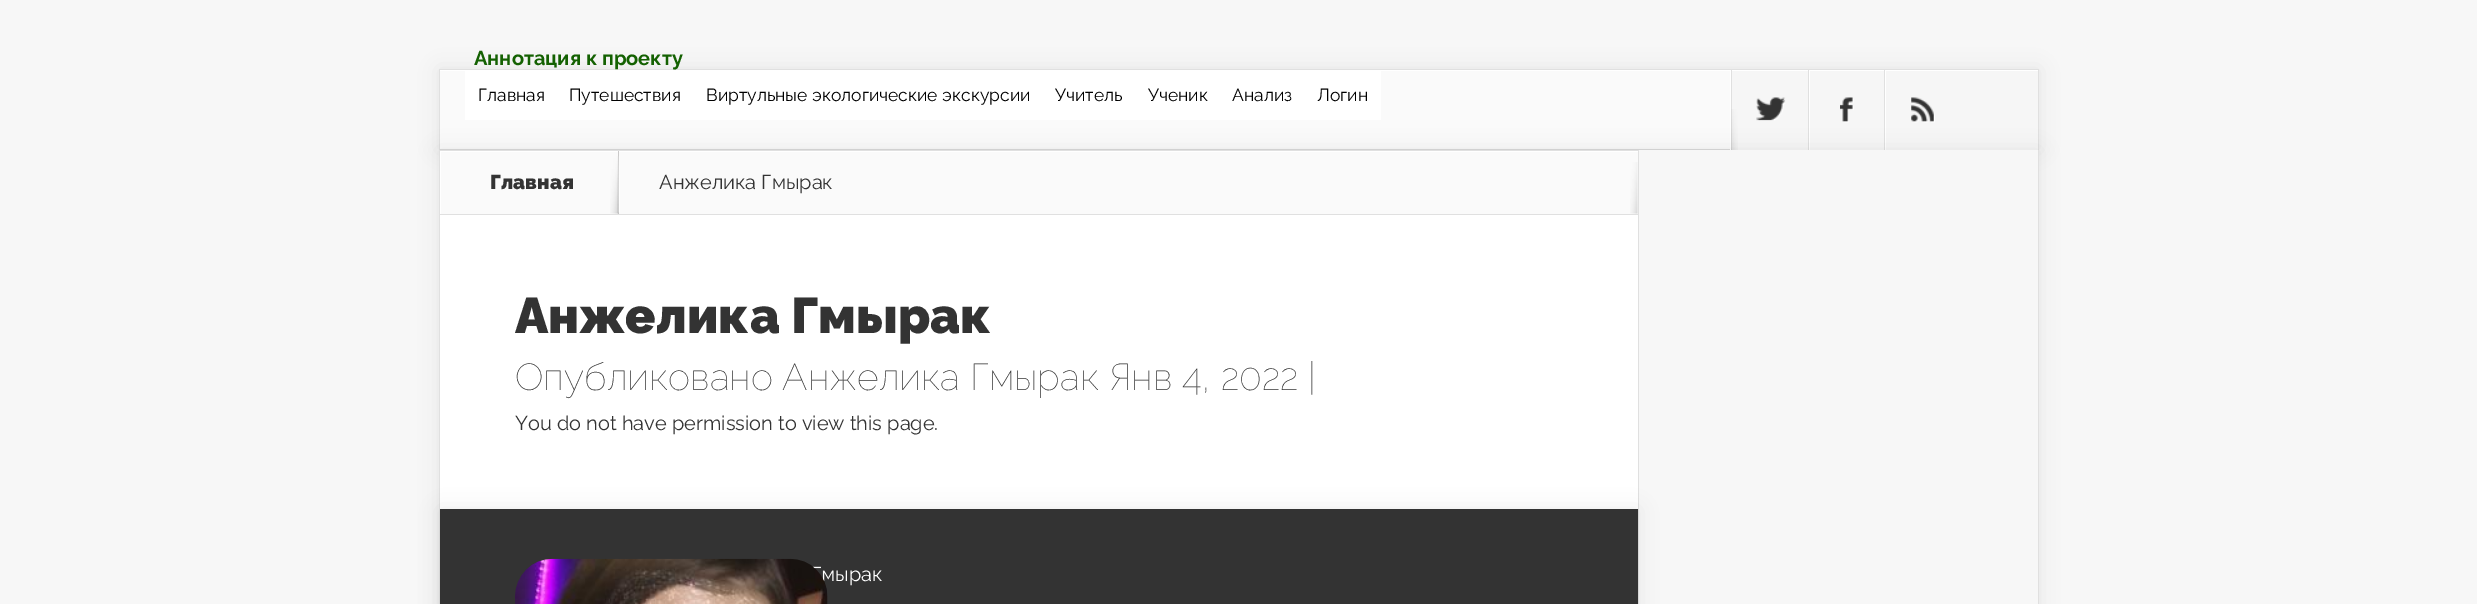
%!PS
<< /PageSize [2477 604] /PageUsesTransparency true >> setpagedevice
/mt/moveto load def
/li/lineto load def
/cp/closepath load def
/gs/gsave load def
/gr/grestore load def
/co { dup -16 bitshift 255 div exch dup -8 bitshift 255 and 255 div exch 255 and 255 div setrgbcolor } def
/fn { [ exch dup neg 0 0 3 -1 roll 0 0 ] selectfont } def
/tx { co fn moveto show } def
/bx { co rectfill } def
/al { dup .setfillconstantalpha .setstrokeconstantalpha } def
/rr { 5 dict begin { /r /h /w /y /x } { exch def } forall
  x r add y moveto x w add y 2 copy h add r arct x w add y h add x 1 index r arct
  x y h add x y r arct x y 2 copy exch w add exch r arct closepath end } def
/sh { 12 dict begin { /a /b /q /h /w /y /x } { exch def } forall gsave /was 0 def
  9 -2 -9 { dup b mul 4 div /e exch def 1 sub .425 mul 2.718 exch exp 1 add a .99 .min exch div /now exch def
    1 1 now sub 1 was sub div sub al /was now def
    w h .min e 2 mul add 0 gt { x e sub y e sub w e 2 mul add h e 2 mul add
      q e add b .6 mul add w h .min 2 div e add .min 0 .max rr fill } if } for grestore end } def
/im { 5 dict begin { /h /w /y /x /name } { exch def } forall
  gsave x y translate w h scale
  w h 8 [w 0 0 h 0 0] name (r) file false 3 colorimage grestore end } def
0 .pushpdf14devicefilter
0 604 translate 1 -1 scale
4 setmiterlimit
0 0 2477 604 16#F7F7F7 bx
16#000000 co
439 69 1600 81 0 9.5 .07 sh
440 71 1290 78 16#FAFAFA bx
440 149 1290 1 16#DADADA bx
440 70 1290 1 16#FFFFFF bx
439 69 1600 1 16#E0E0E0 bx
2038 69 1 81 16#E0E0E0 bx
439 69 1 81 16#E0E0E0 bx
465 71 916 49 16#FFFFFF bx
1730 70 1 80 16#FFFFFF bx
1732 71 306 79 16#F6F6F6 bx
1731 70 307 1 16#FFFFFF bx
1731 70 1 80 16#E0E0E0 bx
(media/1.raw) 1756 97 30 24 im
1809 70 1 80 16#FFFFFF bx
1808 70 1 80 16#E0E0E0 bx
(media/2.raw) 1840 97 14 26 im
1885 70 1 80 16#FFFFFF bx
1884 70 1 80 16#E0E0E0 bx
(media/3.raw) 1911 97 24 26 im
(media/4.raw) 1731 109 7 41 im
16#000000 co
439 150 1600 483 0 9.5 .07 sh
440 215 1198 294 16#FFFFFF bx
2038 150 1 454 16#E0E0E0 bx
439 150 1 454 16#E0E0E0 bx
441 152 1197 62 16#FAFAFA bx
gs
440 151 1198 63 rectclip
16#FFFFFF co
316 28 mt 1761 28 li 1761 338 li 316 338 li cp 441 152 mt 1639 152 li 1639 215 li 441 215 li cp eofill
gr
440 150 1198 1 16#E0E0E0 bx
440 214 1198 1 16#E0E0E0 bx
618 151 1 63 16#CAC9C9 bx
(media/5.raw) 610 156 10 58 im
(media/6.raw) 1630 162 8 52 im
1639 150 399 454 16#F7F7F7 bx
1638 150 1 454 16#E0E0E0 bx
16#000000 co
440 509 1198 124 0 9.5 .07 sh
440 509 1198 95 16#333333 bx
(Аннотация к проекту) 474 65 /Raleway-Bold 20 16#146102 tx
(Главная) 478 101 /Raleway-Regular 17.5 16#000000 tx
(Путешествия) 569 101 /Raleway-Regular 17.5 16#000000 tx
(Виртульные экологические экскурсии) 706 101 /Raleway-Regular 17.5 16#000000 tx
(Учитель) 1055 101 /Raleway-Regular 17.5 16#000000 tx
(Ученик) 1148 101 /Raleway-Regular 17.5 16#000000 tx
(Анализ) 1232 101 /Raleway-Regular 17.5 16#000000 tx
(Логин) 1317 101 /Raleway-Regular 17.5 16#000000 tx
(Главная) 490 189 /Raleway-Black 20 16#333333 tx
(Анжелика Гмырак) 659 189 /Raleway-Regular 20 16#333333 tx
(Анжелика Гмырак) 515 333 /Raleway-Black 50 16#333333 tx
(Опубликовано Анжелика Гмырак Янв 4, 2022 |) 515 390 /Raleway-Thin 37.5 16#333333 tx
(You do not have permission to view this page.) 515 430 /Raleway-Regular 20 16#333333 tx
(мырак) 821 581 /Raleway-Regular 20 16#FFFFFF tx
(media/7.raw) 515 558 313 46 im
.poppdf14devicefilter showpage
